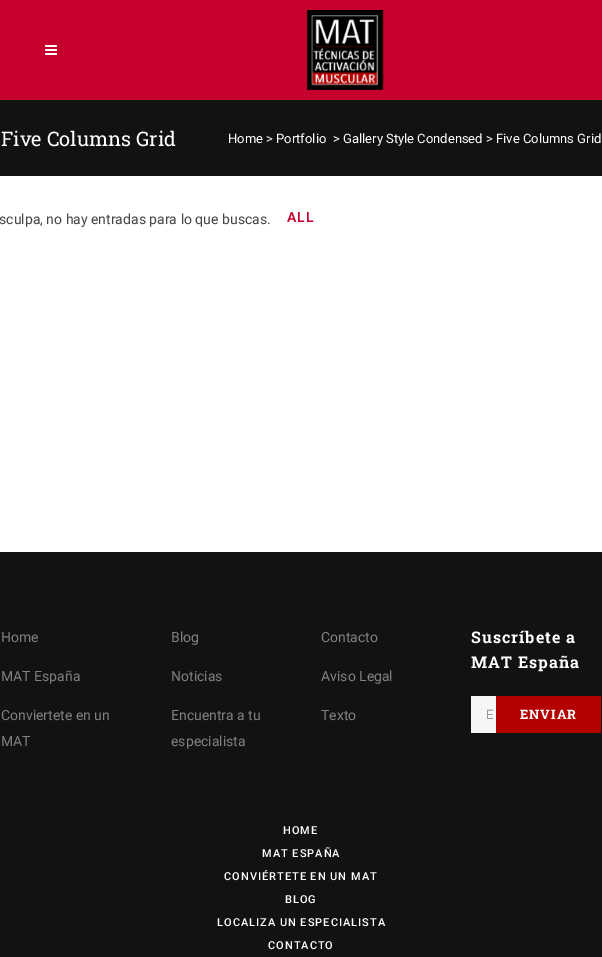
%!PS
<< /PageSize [602 957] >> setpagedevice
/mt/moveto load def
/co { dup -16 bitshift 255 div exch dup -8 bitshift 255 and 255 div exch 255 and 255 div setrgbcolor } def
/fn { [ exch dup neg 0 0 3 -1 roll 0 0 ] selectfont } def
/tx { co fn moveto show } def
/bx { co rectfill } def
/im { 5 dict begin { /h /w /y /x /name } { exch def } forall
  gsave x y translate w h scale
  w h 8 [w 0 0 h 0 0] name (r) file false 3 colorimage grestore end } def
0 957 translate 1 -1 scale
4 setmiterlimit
0 0 602 957 16#FFFFFF bx
0 0 602 100 16#C7012E bx
(media/1.raw) 45 45 12 10 im
(media/2.raw) 306 10 78 80 im
0 100 602 76 16#121212 bx
0 552 602 405 16#121212 bx
471 696 25 37 16#F6F6F6 bx
496 696 105 37 16#B40000 bx
(Five Columns Grid) 1 146 /RobotoSlab-Regular 20 16#FFFFFF tx
(Home > Portfolio) 228 143 /Roboto-Regular 13 16#FFFFFF tx
(> Gallery Style Condensed > Five Columns Grid) 333 143 /Roboto-Regular 13 16#FFFFFF tx
(sculpa, no hay entradas para lo que buscas.) -1 224 /Roboto-Regular 14 16#444444 tx
/Roboto-SemiBold 14 fn
16#C7012E co
287 222 mt 1 0 (ALL) ashow
(Home) 1 642 /Roboto-Regular 14 16#818181 tx
(MAT España) 1 681 /Roboto-Regular 14 16#818181 tx
(Conviertete en un) 1 720 /Roboto-Regular 14 16#818181 tx
(MAT) 1 746 /Roboto-Regular 14 16#818181 tx
(Blog) 171 642 /Roboto-Regular 14 16#818181 tx
(Noticias) 171 681 /Roboto-Regular 14 16#818181 tx
(Encuentra a tu) 171 720 /Roboto-Regular 14 16#818181 tx
(especialista) 171 746 /Roboto-Regular 14 16#818181 tx
(Contacto) 321 642 /Roboto-Regular 14 16#818181 tx
(Aviso Legal) 321 681 /Roboto-Regular 14 16#818181 tx
(Texto) 321 720 /Roboto-Regular 14 16#818181 tx
/RobotoSlab-Bold 16 fn
16#FFFFFF co
471 643 mt 1 0 (Suscríbete a) ashow
471 668 mt 1 0 (MAT España) ashow
(E) 486 719 /Raleway-Regular 13 16#757575 tx
/RobotoSlab-Bold 13 fn
16#FFFFFF co
520 719 mt 1 0 (ENVIAR) ashow
/Roboto-Medium 11 fn
283 834 mt 1 0 (HOME) ashow
262 857 mt 1 0 (MAT ESPAÑA) ashow
224 880 mt 1 0 (CONVIÉRTETE EN UN MAT) ashow
285 903 mt 1 0 (BLOG) ashow
217 926 mt 1 0 (LOCALIZA UN ESPECIALISTA) ashow
268 949 mt 1 0 (CONTACTO) ashow
showpage
